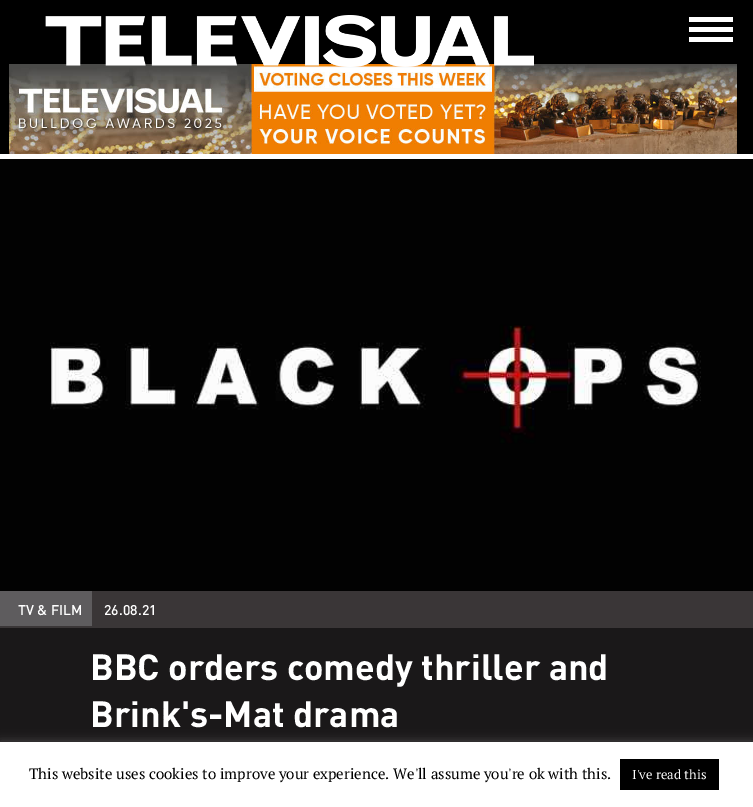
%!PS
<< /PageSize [753 807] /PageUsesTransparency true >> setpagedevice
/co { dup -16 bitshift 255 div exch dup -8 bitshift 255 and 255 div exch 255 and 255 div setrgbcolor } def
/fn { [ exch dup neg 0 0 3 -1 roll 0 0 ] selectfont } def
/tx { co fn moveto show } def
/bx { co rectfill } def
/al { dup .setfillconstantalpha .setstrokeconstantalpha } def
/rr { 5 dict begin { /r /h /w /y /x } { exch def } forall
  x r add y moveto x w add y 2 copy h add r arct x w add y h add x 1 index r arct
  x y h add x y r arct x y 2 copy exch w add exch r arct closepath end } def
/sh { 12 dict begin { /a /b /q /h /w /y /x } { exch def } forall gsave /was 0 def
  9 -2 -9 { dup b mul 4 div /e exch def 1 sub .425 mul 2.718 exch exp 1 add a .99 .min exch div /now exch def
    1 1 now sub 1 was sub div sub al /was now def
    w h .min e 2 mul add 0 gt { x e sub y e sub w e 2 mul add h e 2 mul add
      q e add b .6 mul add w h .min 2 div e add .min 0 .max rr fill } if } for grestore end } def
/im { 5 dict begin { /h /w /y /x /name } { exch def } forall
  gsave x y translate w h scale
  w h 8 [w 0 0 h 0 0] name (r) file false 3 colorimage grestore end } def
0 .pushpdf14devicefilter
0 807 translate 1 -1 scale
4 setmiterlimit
0 0 753 807 16#FFFFFF bx
0 0 753 154 16#000000 bx
(media/1.raw) 689 17 44 25 im
(media/3.raw) 9 64 728 90 im
(media/2.raw) 45 15 489 52 im
0 591 753 37 16#3A3637 bx
(media/4.raw) 0 159 753 432 im
0 591 92 35 16#5E5C5E bx
0 628 753 114 16#1A1819 bx
16#ACABAB co
0 741 753 65 0 5 .3 sh
0 742 753 65 16#FFFFFF bx
620 759 99 31 16#000000 bx
(TV & FILM) 18 615 /DIN-Medium 14 16#FFFFFF tx
(26.08.21) 104 615 /DIN-Medium 14 16#FFFFFF tx
(BBC orders comedy thriller and) 90 680 /DIN-Bold 36 16#FFFFFF tx
(Brink's-Mat drama) 90 727 /DIN-Bold 36 16#FFFFFF tx
(This website uses cookies to improve your experience. We'll assume you're ok with this.) 29 779 /PTSerif-Regular 15 16#000000 tx
(I've read this) 632 779 /PTSerif-Regular 13 16#FFFFFF tx
.poppdf14devicefilter showpage
